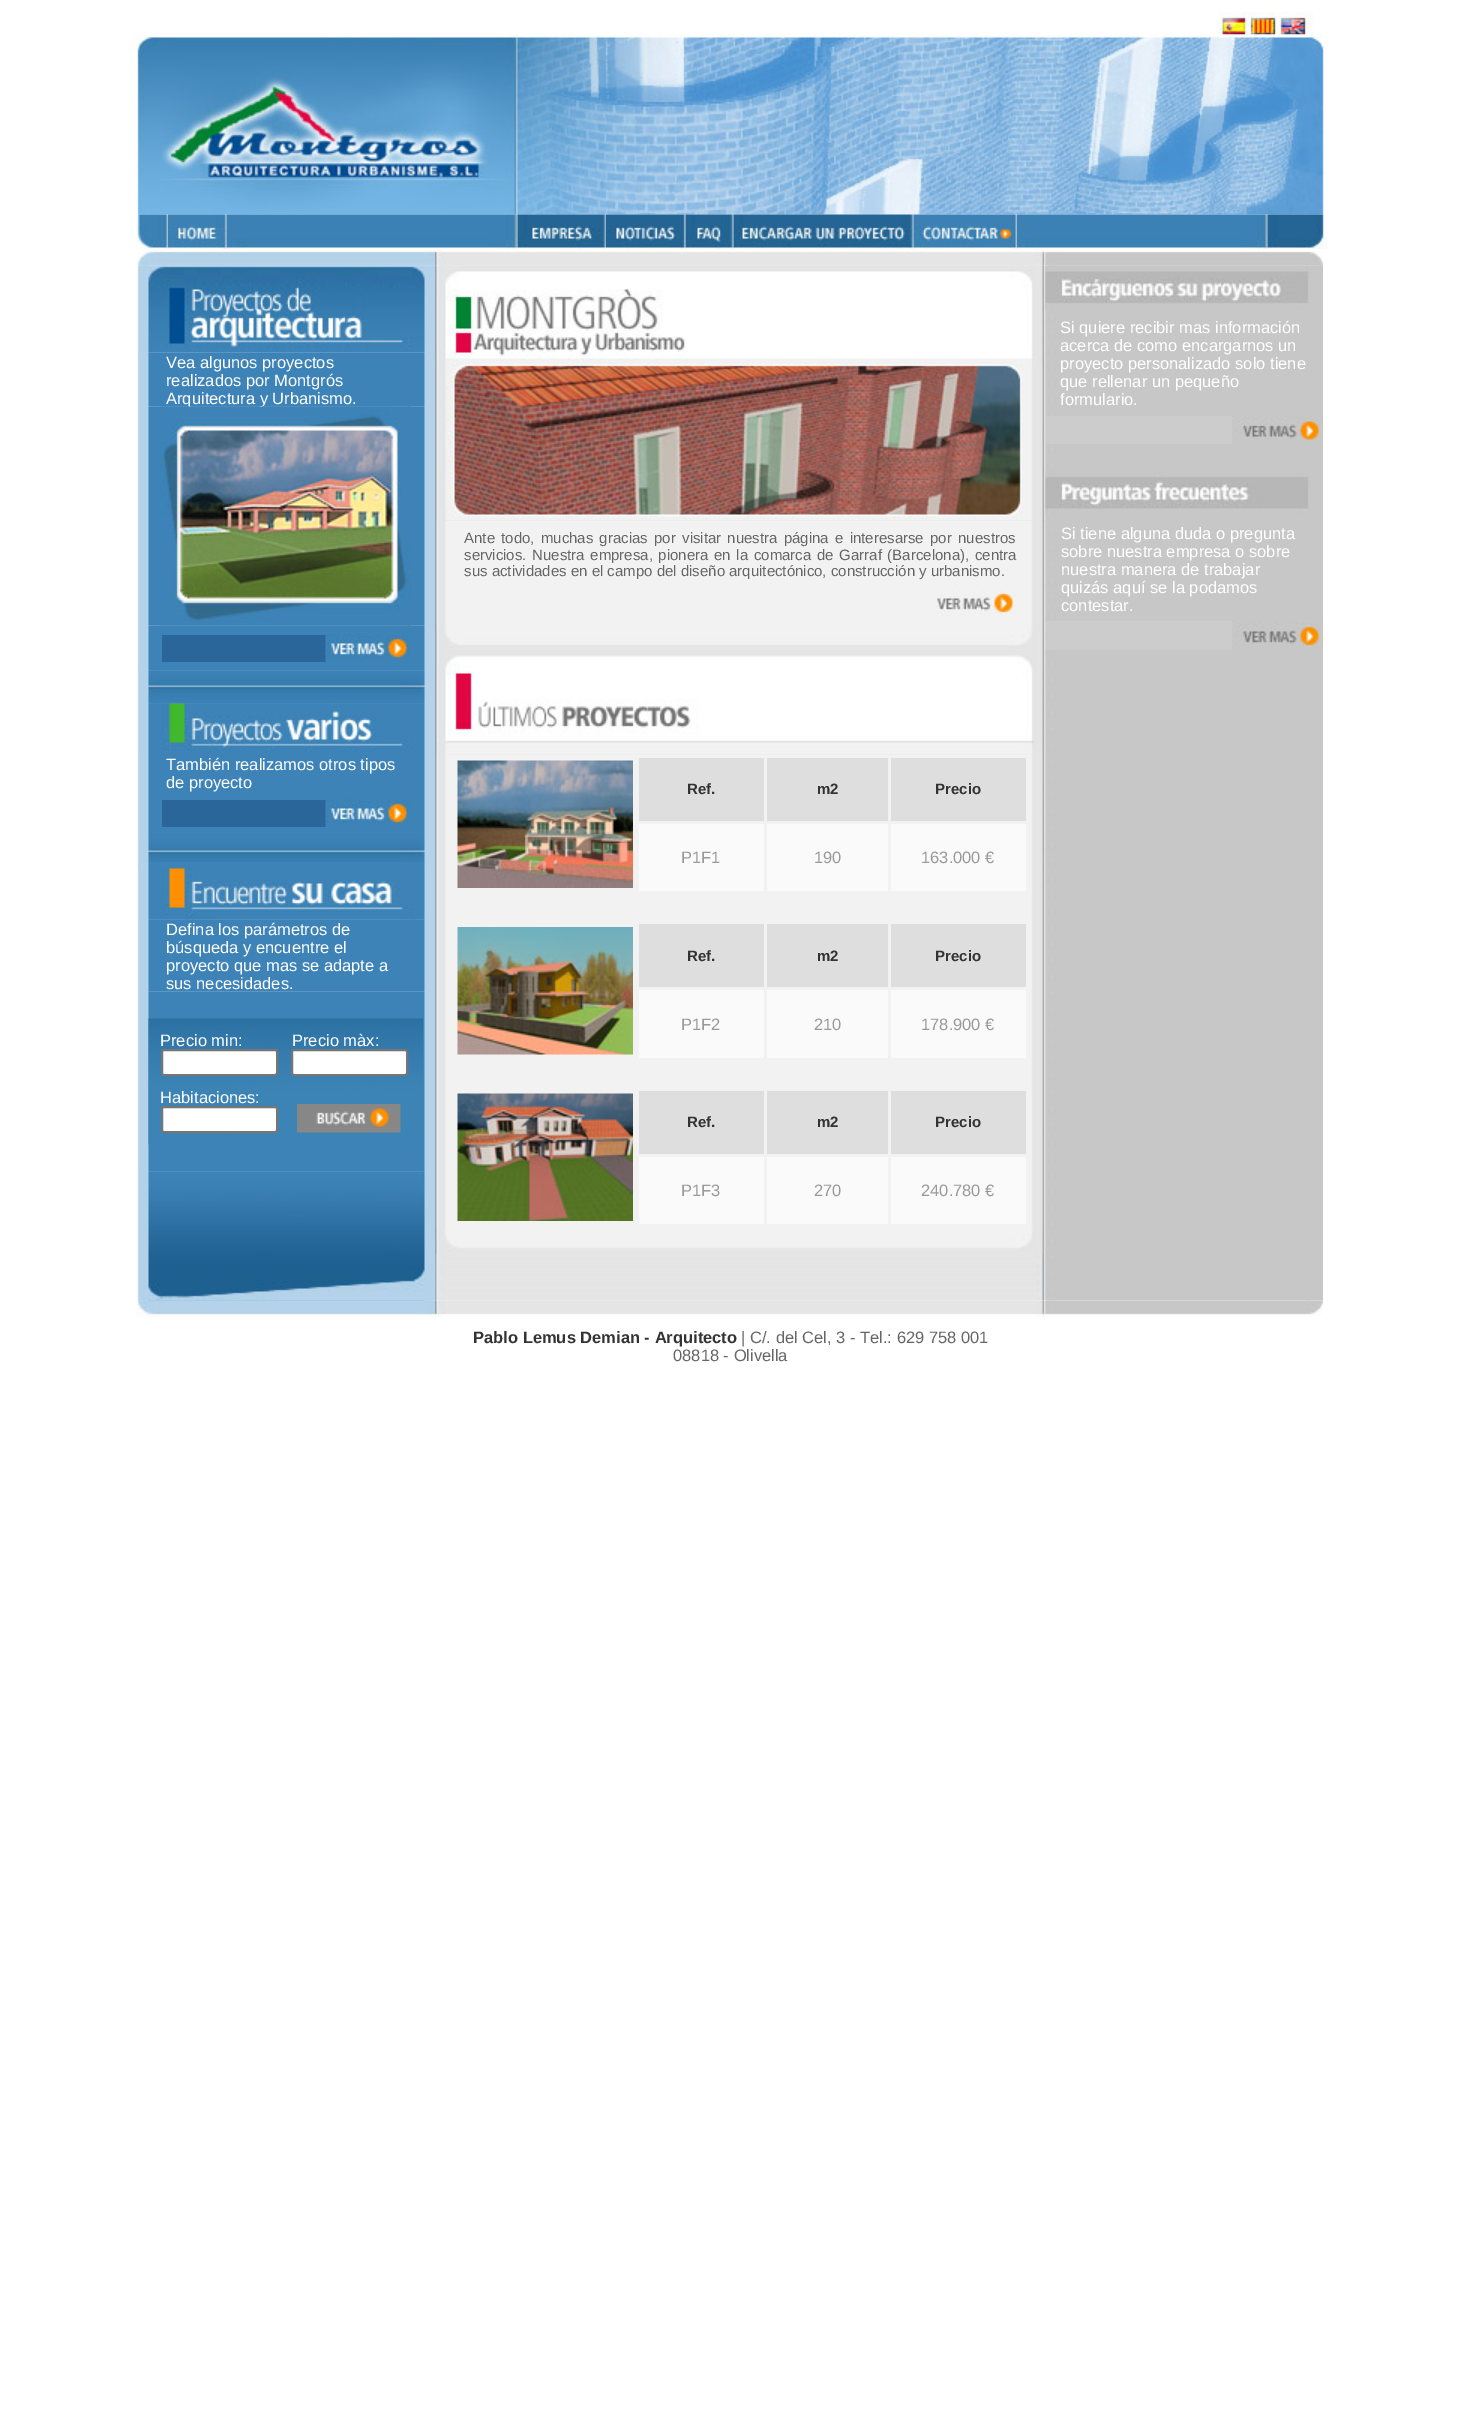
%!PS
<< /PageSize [1461 2435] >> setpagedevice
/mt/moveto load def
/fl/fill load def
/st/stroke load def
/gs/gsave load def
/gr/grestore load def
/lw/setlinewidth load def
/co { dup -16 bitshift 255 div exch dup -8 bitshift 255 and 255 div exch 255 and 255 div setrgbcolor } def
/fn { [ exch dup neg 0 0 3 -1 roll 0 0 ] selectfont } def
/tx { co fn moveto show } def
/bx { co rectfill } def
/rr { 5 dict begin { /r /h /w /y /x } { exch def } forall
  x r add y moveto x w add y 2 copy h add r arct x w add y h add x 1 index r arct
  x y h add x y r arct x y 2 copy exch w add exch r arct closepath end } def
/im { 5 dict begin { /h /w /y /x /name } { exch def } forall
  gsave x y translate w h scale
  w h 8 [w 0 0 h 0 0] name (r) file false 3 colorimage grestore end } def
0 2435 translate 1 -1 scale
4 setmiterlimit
0 0 1461 2435 16#FFFFFF bx
(media/1.raw) 1218 12 96 23 im
(media/2.raw) 135 34 1189 181 im
(media/3.raw) 135 214 33 35 im
(media/4.raw) 168 214 59 35 im
(media/5.raw) 226 214 292 35 im
(media/6.raw) 517 214 89 35 im
(media/7.raw) 606 214 80 35 im
(media/8.raw) 685 214 49 35 im
(media/9.raw) 733 214 181 35 im
(media/10.raw) 913 214 104 35 im
(media/11.raw) 1017 214 251 35 im
(media/12.raw) 1267 214 61 35 im
(media/16.raw) 137 265 298 1036 im
(media/13.raw) 137 249 298 17 im
(media/35.raw) 435 265 609 1036 im
(media/14.raw) 435 249 609 17 im
(media/47.raw) 1044 265 279 1036 im
(media/15.raw) 1044 251 279 15 im
(media/18.raw) 143 352 282 55 im
(media/17.raw) 137 265 298 88 im
(media/19.raw) 143 406 282 220 im
(media/21.raw) 143 625 282 46 im
162 635 164 27 16#2B669B bx
(media/22.raw) 325 634 85 28 im
(media/23.raw) 143 670 282 34 im
(media/25.raw) 143 703 282 217 im
(media/24.raw) 137 670 288 34 im
(media/26.raw) 137 703 287 49 im
162 800 164 27 16#2B669B bx
(media/22.raw) 325 799 85 28 im
(media/27.raw) 137 839 288 23 im
(media/29.raw) 143 919 282 73 im
(media/28.raw) 137 868 288 52 im
(media/30.raw) 143 991 282 181 im
(media/31.raw) 148 1018 275 127 im
16#FFFFFF co
162 1050 115 25 2 rr gs fl gr
16#767676 co
2 lw
st
16#FFFFFF co
292 1050 115 25 2 rr gs fl gr
16#767676 co
st
16#FFFFFF co
162 1107 115 25 2 rr gs fl gr
16#767676 co
st
(media/32.raw) 297 1104 104 29 im
(media/33.raw) 138 1171 297 130 im
(media/34.raw) 137 1171 298 130 im
(media/36.raw) 435 265 609 98 im
(media/37.raw) 435 363 609 158 im
(media/38.raw) 436 363 587 157 im
(media/39.raw) 435 521 609 103 im
(media/40.raw) 935 591 81 24 im
(media/41.raw) 435 624 609 27 im
(media/43.raw) 435 754 609 473 im
(media/42.raw) 435 651 609 104 im
(media/44.raw) 457 760 176 128 im
639 758 125 63 16#DEDEDE bx
767 758 121 63 16#DEDEDE bx
891 758 135 63 16#DEDEDE bx
639 824 125 67 16#FAFAFA bx
767 824 121 67 16#FAFAFA bx
891 824 135 67 16#FAFAFA bx
(media/45.raw) 457 927 176 128 im
639 924 125 63 16#DEDEDE bx
767 924 121 63 16#DEDEDE bx
891 924 135 63 16#DEDEDE bx
639 990 125 68 16#FAFAFA bx
767 990 121 68 16#FAFAFA bx
891 990 135 68 16#FAFAFA bx
(media/46.raw) 457 1093 176 128 im
639 1091 125 63 16#DEDEDE bx
767 1091 121 63 16#DEDEDE bx
891 1091 135 63 16#DEDEDE bx
639 1157 125 67 16#FAFAFA bx
767 1157 121 67 16#FAFAFA bx
891 1157 135 67 16#FAFAFA bx
(media/41.raw) 435 1227 609 27 im
(media/48.raw) 1045 265 278 45 im
1046 416 186 28 16#CCCCCC bx
(media/49.raw) 1233 415 90 25 im
(media/50.raw) 1045 471 264 45 im
1046 621 186 29 16#CCCCCC bx
(media/51.raw) 1233 621 90 25 im
(media/52.raw) 136 1300 299 17 im
(media/53.raw) 435 1300 609 17 im
(media/54.raw) 1044 1300 279 15 im
(Vea algunos proyectos) 166 368 /LiberationSans-Regular 16.5 16#FFFFFF tx
(realizados por Montgrós) 166 386 /LiberationSans-Regular 16.5 16#FFFFFF tx
(Arquitectura y Urbanismo.) 166 404 /LiberationSans-Regular 16.5 16#FFFFFF tx
(media/20.raw) 160 406 251 220 im
(También realizamos otros tipos) 166 770 /LiberationSans-Regular 16.5 16#FFFFFF tx
(de proyecto) 166 788 /LiberationSans-Regular 16.5 16#FFFFFF tx
(Defina los parámetros de) 166 935 /LiberationSans-Regular 16.5 16#FFFFFF tx
(búsqueda y encuentre el) 166 953 /LiberationSans-Regular 16.5 16#FFFFFF tx
(proyecto que mas se adapte a) 166 971 /LiberationSans-Regular 16.5 16#FFFFFF tx
(sus necesidades.) 166 989 /LiberationSans-Regular 16.5 16#FFFFFF tx
(Precio min:) 160 1046 /LiberationSans-Regular 16.5 16#FFFFFF tx
(Precio màx:) 292 1046 /LiberationSans-Regular 16.5 16#FFFFFF tx
(Habitaciones:) 160 1103 /LiberationSans-Regular 16.5 16#FFFFFF tx
/LiberationSans-Regular 15 fn
16#666666 co
464 543 mt 2.1 0 32 (Ante todo, muchas gracias por visitar nuestra página e interesarse por nuestros) widthshow
(servicios.) 464 560 /LiberationSans-Regular 15 16#666666 tx
532 560 mt 1.5 0 32 (Nuestra empresa, pionera en la comarca de Garraf \(Barcelona\), centra) widthshow
(sus actividades en el campo del diseño arquitectónico, construcción y urbanismo.) 464 576 /LiberationSans-Regular 15 16#666666 tx
(Ref.) 687 794 /LiberationSans-Bold 15 16#333333 tx
(m2) 817 794 /LiberationSans-Bold 15 16#333333 tx
(Precio) 935 794 /LiberationSans-Bold 15 16#333333 tx
(P1F1) 681 863 /LiberationSans-Regular 16.5 16#999999 tx
(190) 814 863 /LiberationSans-Regular 16.5 16#999999 tx
(163.000 €) 921 863 /LiberationSans-Regular 16.5 16#999999 tx
(Ref.) 687 961 /LiberationSans-Bold 15 16#333333 tx
(m2) 817 961 /LiberationSans-Bold 15 16#333333 tx
(Precio) 935 961 /LiberationSans-Bold 15 16#333333 tx
(P1F2) 681 1030 /LiberationSans-Regular 16.5 16#999999 tx
(210) 814 1030 /LiberationSans-Regular 16.5 16#999999 tx
(178.900 €) 921 1030 /LiberationSans-Regular 16.5 16#999999 tx
(Ref.) 687 1127 /LiberationSans-Bold 15 16#333333 tx
(m2) 817 1127 /LiberationSans-Bold 15 16#333333 tx
(Precio) 935 1127 /LiberationSans-Bold 15 16#333333 tx
(P1F3) 681 1196 /LiberationSans-Regular 16.5 16#999999 tx
(270) 814 1196 /LiberationSans-Regular 16.5 16#999999 tx
(240.780 €) 921 1196 /LiberationSans-Regular 16.5 16#999999 tx
(Si quiere recibir mas información) 1060 333 /LiberationSans-Regular 16.5 16#FFFFFF tx
(acerca de como encargarnos un) 1060 351 /LiberationSans-Regular 16.5 16#FFFFFF tx
(proyecto personalizado solo tiene) 1060 369 /LiberationSans-Regular 16.5 16#FFFFFF tx
(que rellenar un pequeño) 1060 387 /LiberationSans-Regular 16.5 16#FFFFFF tx
(formulario.) 1060 405 /LiberationSans-Regular 16.5 16#FFFFFF tx
(Si tiene alguna duda o pregunta) 1061 539 /LiberationSans-Regular 16.5 16#FFFFFF tx
(sobre nuestra empresa o sobre) 1061 557 /LiberationSans-Regular 16.5 16#FFFFFF tx
(nuestra manera de trabajar) 1061 575 /LiberationSans-Regular 16.5 16#FFFFFF tx
(quizás aquí se la podamos) 1061 593 /LiberationSans-Regular 16.5 16#FFFFFF tx
(contestar.) 1061 611 /LiberationSans-Regular 16.5 16#FFFFFF tx
(Pablo Lemus Demian - Arquitecto) 473 1343 /LiberationSans-Bold 16.5 16#333333 tx
(| C/. del Cel, 3 - Tel.: 629 758 001) 741 1343 /LiberationSans-Regular 16.5 16#666666 tx
(08818 - Olivella) 673 1361 /LiberationSans-Regular 16.5 16#666666 tx
showpage
